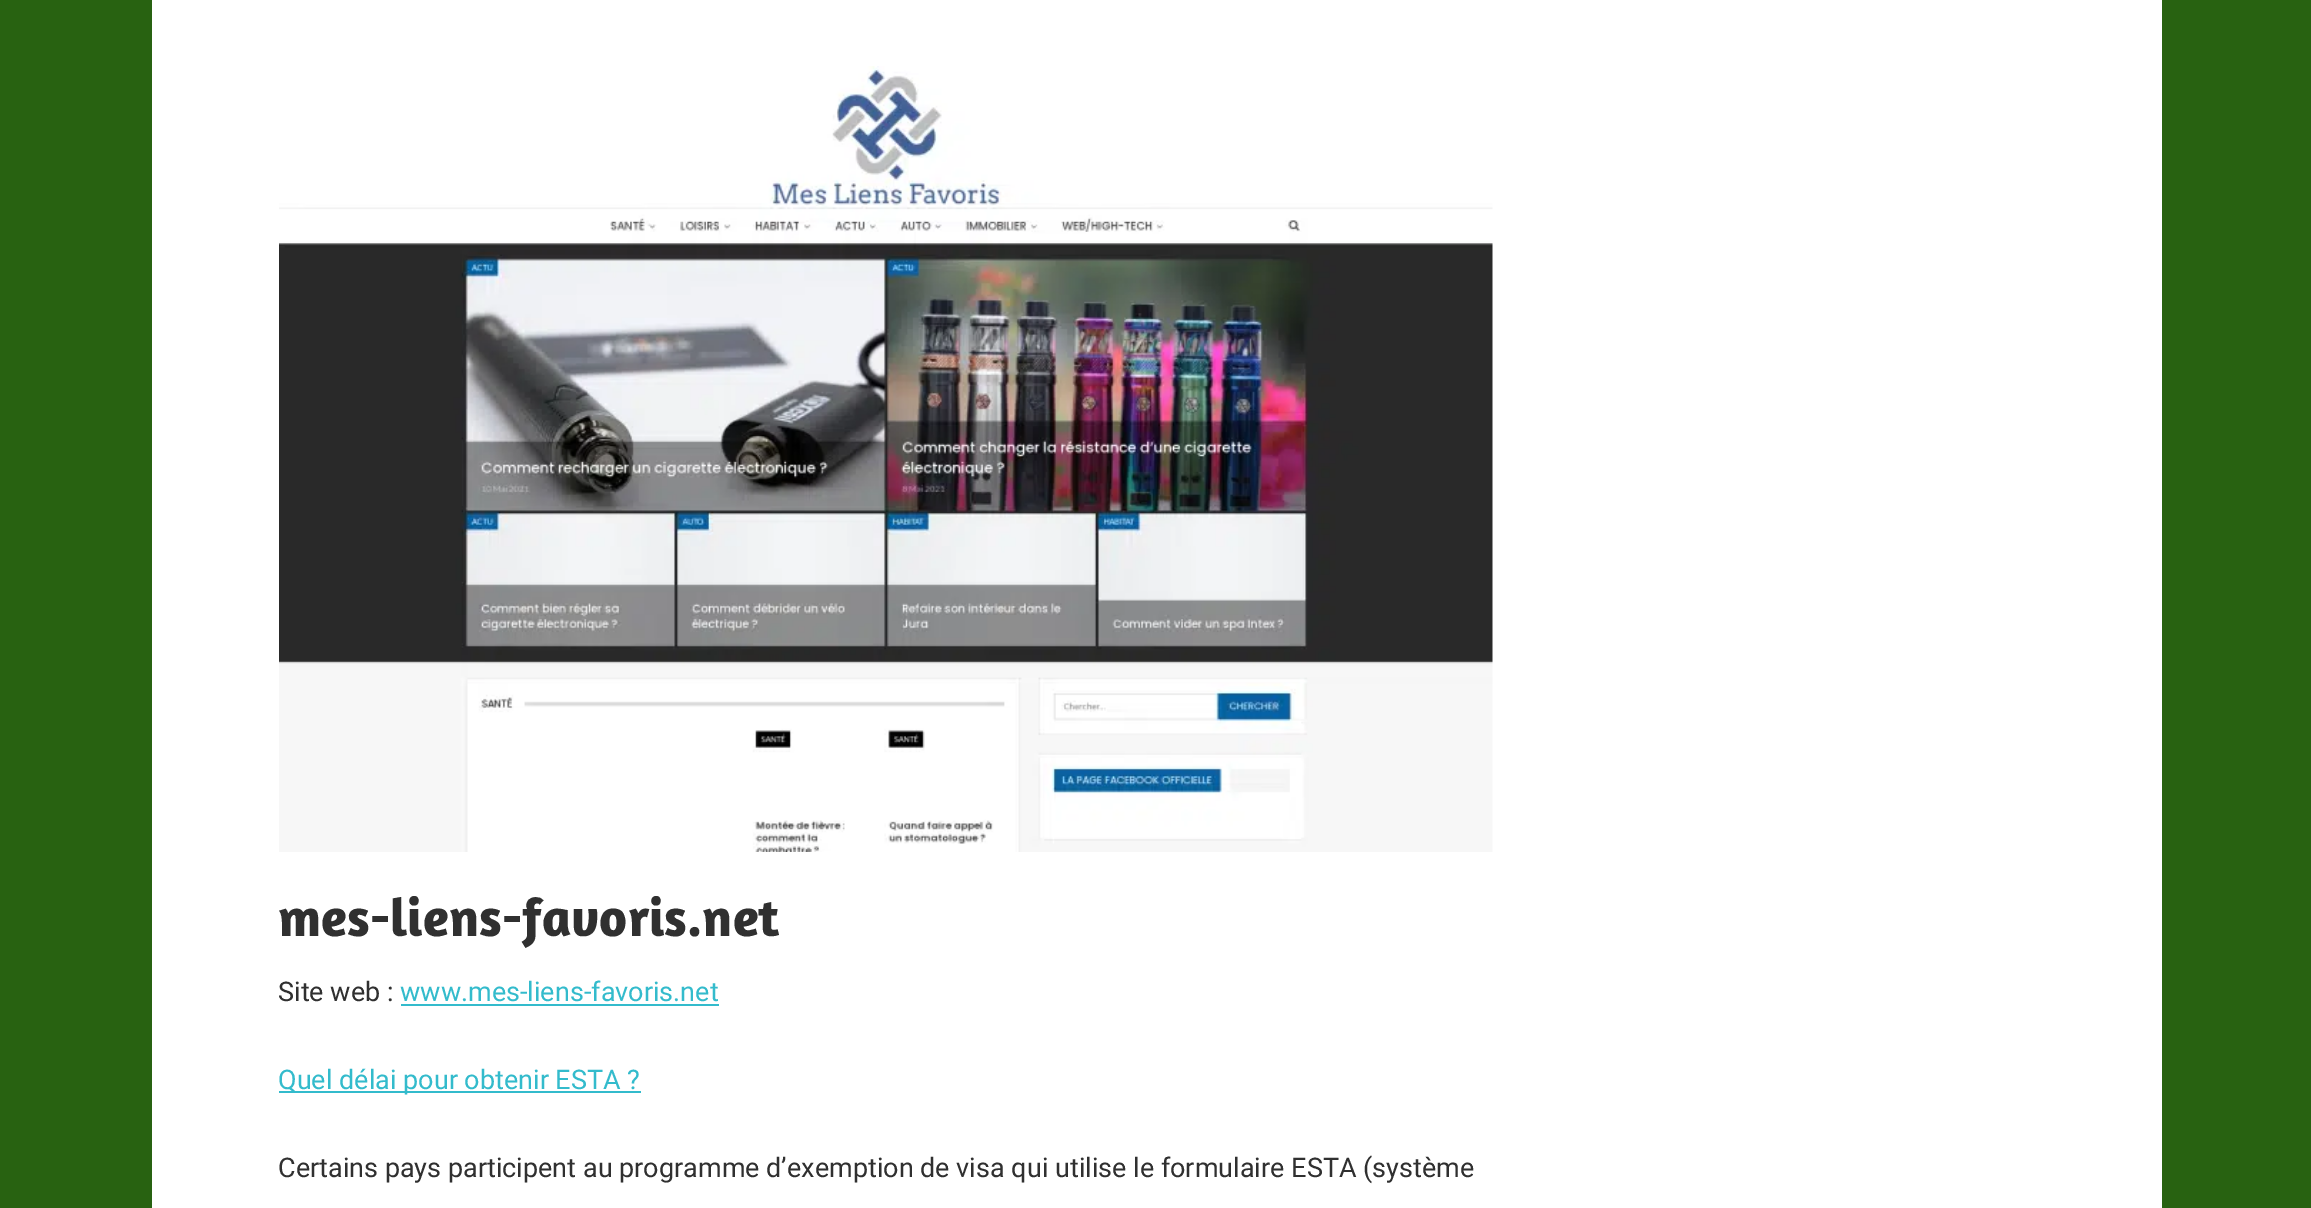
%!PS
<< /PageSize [2311 1208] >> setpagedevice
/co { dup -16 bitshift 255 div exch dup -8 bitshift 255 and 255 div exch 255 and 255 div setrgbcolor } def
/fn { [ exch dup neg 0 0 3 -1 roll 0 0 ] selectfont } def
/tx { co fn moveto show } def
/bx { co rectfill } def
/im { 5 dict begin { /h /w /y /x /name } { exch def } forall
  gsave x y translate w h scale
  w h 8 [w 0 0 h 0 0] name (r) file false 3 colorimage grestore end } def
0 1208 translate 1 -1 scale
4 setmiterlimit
0 0 2311 1208 16#286211 bx
152 0 2010 1208 16#FFFFFF bx
(media/1.raw) 279 66 1214 786 im
401 1004 318 2 16#33BBCC bx
279 1091 362 2 16#33BBCC bx
(mes-liens-favoris.net) 278 936 /Amaranth-Bold 54 16#303030 tx
(Site web :) 278 1001 /Roboto-Regular 27 16#303030 tx
(www.mes-liens-favoris.net) 400 1001 /Roboto-Regular 27 16#33BBCC tx
(Quel délai pour obtenir ESTA ?) 278 1089 /Roboto-Regular 27 16#33BBCC tx
(Certains pays participent au programme d’exemption de visa qui utilise le formulaire ESTA \(système) 278 1177 /Roboto-Regular 27 16#303030 tx
showpage
